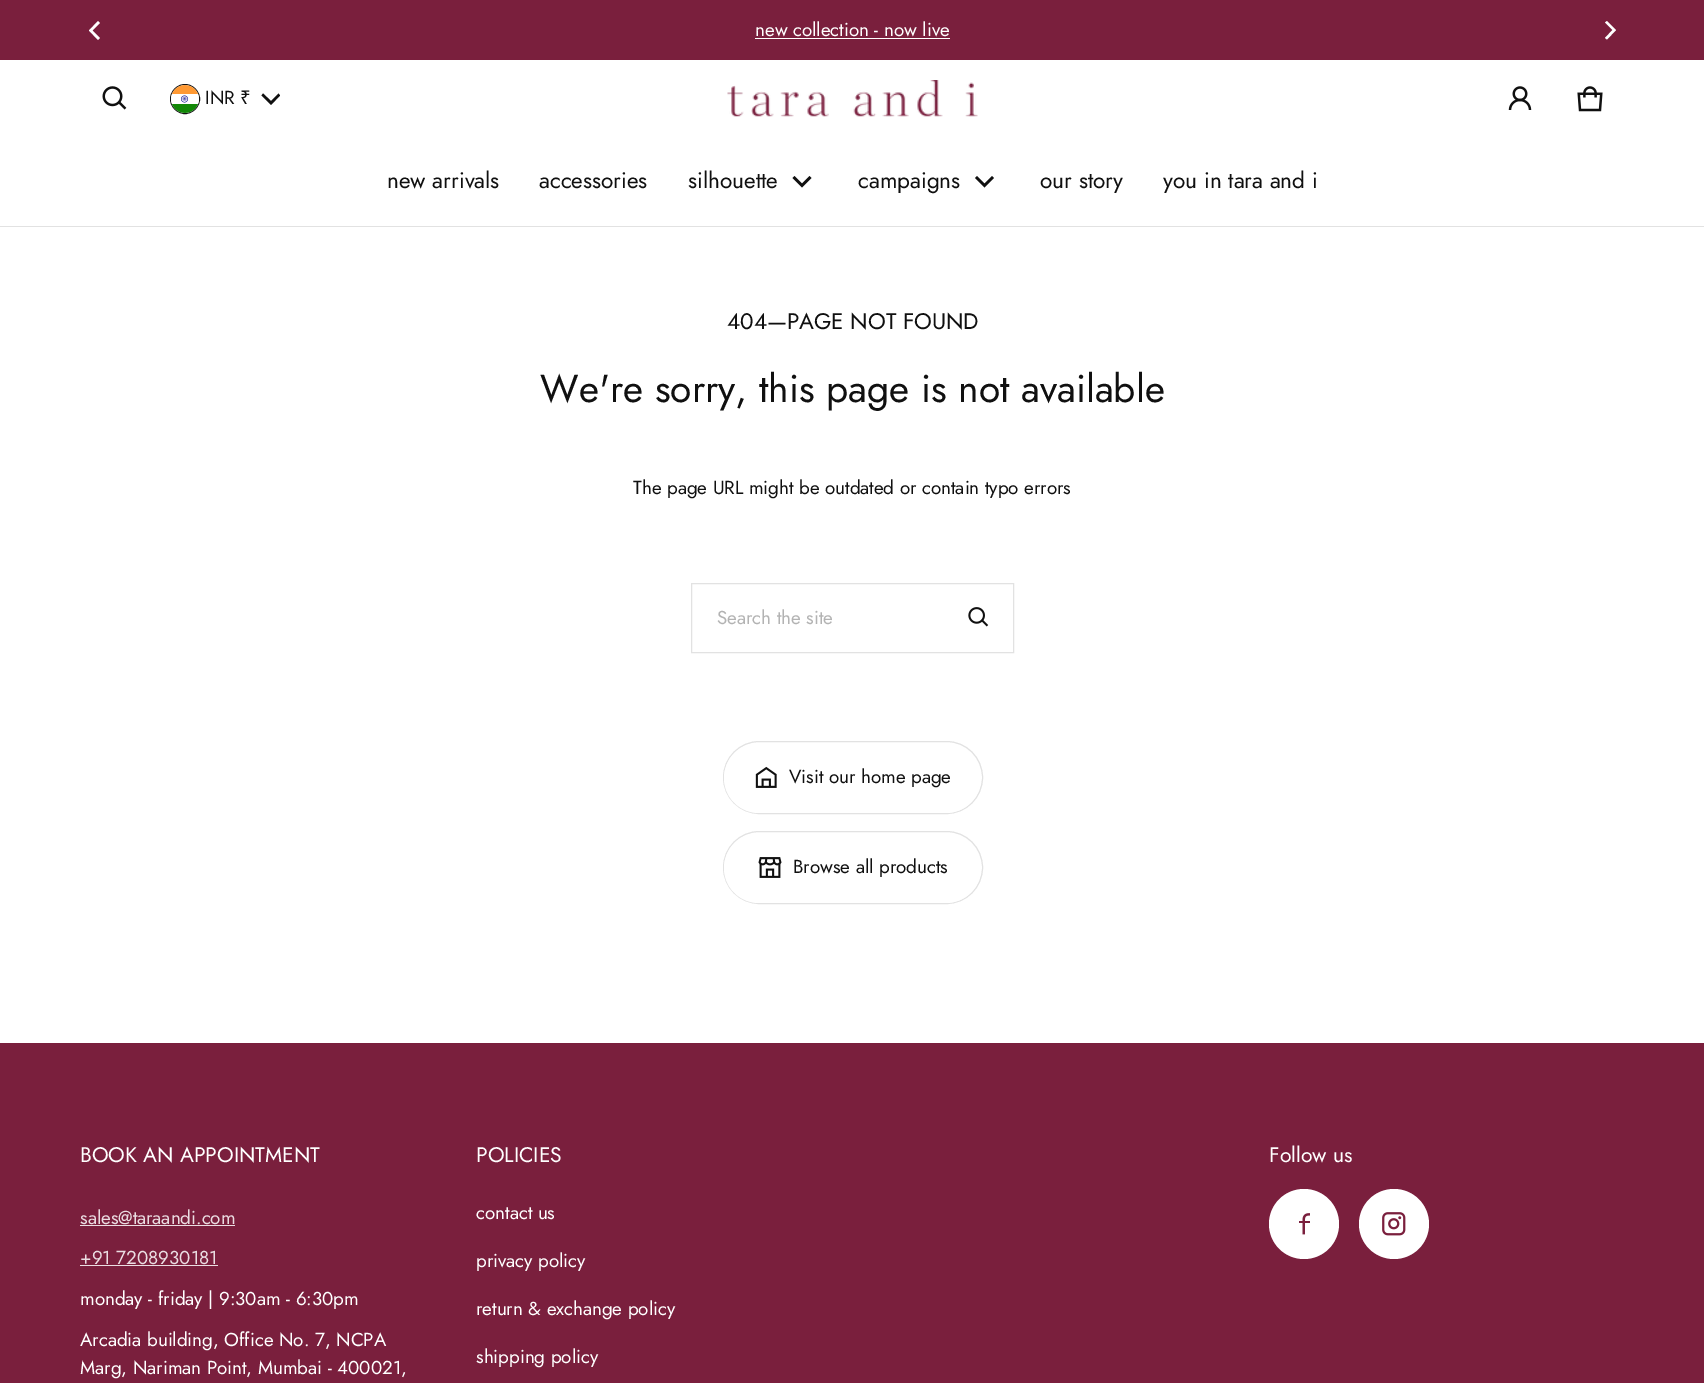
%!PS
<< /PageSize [1704 1383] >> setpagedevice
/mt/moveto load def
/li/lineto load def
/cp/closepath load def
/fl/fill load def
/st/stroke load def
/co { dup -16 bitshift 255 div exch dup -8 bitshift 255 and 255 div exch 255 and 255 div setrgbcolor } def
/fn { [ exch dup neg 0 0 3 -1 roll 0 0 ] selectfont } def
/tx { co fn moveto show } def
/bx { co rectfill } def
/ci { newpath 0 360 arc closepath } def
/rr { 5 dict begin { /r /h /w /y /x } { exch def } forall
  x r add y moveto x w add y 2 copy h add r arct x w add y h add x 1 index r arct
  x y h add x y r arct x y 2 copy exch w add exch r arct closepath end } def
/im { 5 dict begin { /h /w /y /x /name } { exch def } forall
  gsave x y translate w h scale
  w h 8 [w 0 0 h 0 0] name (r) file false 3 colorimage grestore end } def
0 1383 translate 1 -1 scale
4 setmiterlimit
0 0 1704 1383 16#FFFFFF bx
0 0 1704 60 16#7A1F3D bx
16#FFFFFF co
92.5 30.5 mt 100 23 li 98 21 li 89 30.5 li 98 40 li 100 38 li cp eofill
755 38 195 1 16#FFFFFF bx
1612.5 30 mt 1605 22.5 li 1607 21 li 1616 30 li 1607 39.5 li 1605 38 li cp eofill
0 226 1704 1 16#E2E2E2 bx
(media/1.raw) 102 86 25 24 im
16#101010 co
185 99 14.5 ci st
(media/2.raw) 171 85 28 28 im
271 101 mt 278.5 93.5 li 280 95.5 li 271 105 li 261.5 95.5 li 263 93.5 li cp eofill
(media/3.raw) 727 80 251 37 im
(media/4.raw) 1508 86 24 24 im
(media/5.raw) 1577 86 26 26 im
802 183.5 mt 809.5 176 li 811.5 178 li 802 187.5 li 792.5 178 li 794.5 176 li cp eofill
984.5 183.5 mt 992 176 li 994 178 li 984.5 187.5 li 975 178 li 977 176 li cp eofill
16#E2E2E2 co
691.5 583.5 322 69 rectstroke
(media/6.raw) 968 607 21 20 im
723.5 741.5 259 72 36 rr st
16#FFFFFF co
724 743 257 70 35 rr fl
(media/7.raw) 755 766 22 22 im
16#E2E2E2 co
723.5 831.5 259 72 36 rr st
16#FFFFFF co
724 833 257 70 35 rr fl
(media/8.raw) 758 857 24 21 im
0 1043 1704 340 16#7A1F3D bx
80 1225 155 1 16#EBDDE2 bx
80 1265 138 1 16#EBDDE2 bx
16#FFFFFF co
1304 1224 35 ci fl
(media/9.raw) 1299 1213 11 22 im
1394 1224 35 ci fl
(media/10.raw) 1382 1212 24 24 im
(new collection - now live) 755 36 /Jost-Regular 18.75 16#FFFFFF tx
(INR) 205 104 /Jost-Regular 18.75 16#101010 tx
(₹) 240 104 /NotoSans-Regular 18.75 16#101010 tx
(new arrivals) 387 188 /Jost-Regular 22.5 16#101010 tx
(accessories) 539 188 /Jost-Regular 22.5 16#101010 tx
(silhouette) 688 188 /Jost-Regular 22.5 16#101010 tx
(campaigns) 858 188 /Jost-Regular 22.5 16#101010 tx
(our story) 1040 188 /Jost-Regular 22.5 16#101010 tx
(you in tara and i) 1163 188 /Jost-Regular 22.5 16#101010 tx
(404—PAGE NOT FOUND) 727 329 /Jost-Regular 22.5 16#101010 tx
(We're sorry, this page is not available) 540 402 /Jost-Regular 38.9 16#101010 tx
(The page URL might be outdated or contain typo errors) 633 494 /Jost-Regular 18.75 16#101010 tx
(Search the site) 717 624 /Jost-Regular 18.75 16#B3B3B3 tx
(Visit our home page) 789 783 /Jost-Regular 18.75 16#101010 tx
(Browse all products) 793 873 /Jost-Regular 18.75 16#101010 tx
(BOOK AN APPOINTMENT) 80 1162 /Jost-Regular 21.1 16#FFFFFF tx
(sales@taraandi.com) 80 1224 /Jost-Regular 18.75 16#EBDDE2 tx
(+91 7208930181) 80 1264 /Jost-Regular 18.75 16#EBDDE2 tx
(monday - friday | 9:30am - 6:30pm) 80 1305 /Jost-Regular 18.75 16#FFFFFF tx
(Arcadia building, Office No. 7, NCPA) 80 1346 /Jost-Regular 18.75 16#FFFFFF tx
(Marg, Nariman Point, Mumbai - 400021,) 80 1374 /Jost-Regular 18.75 16#FFFFFF tx
(POLICIES) 476 1162 /Jost-Regular 21.1 16#FFFFFF tx
(contact us) 476 1219 /Jost-Regular 18.75 16#FFFFFF tx
(privacy policy) 476 1267 /Jost-Regular 18.75 16#FFFFFF tx
(return & exchange policy) 476 1315 /Jost-Regular 18.75 16#FFFFFF tx
(shipping policy) 476 1363 /Jost-Regular 18.75 16#FFFFFF tx
(Follow us) 1269 1162 /Jost-Regular 21.1 16#FFFFFF tx
showpage
